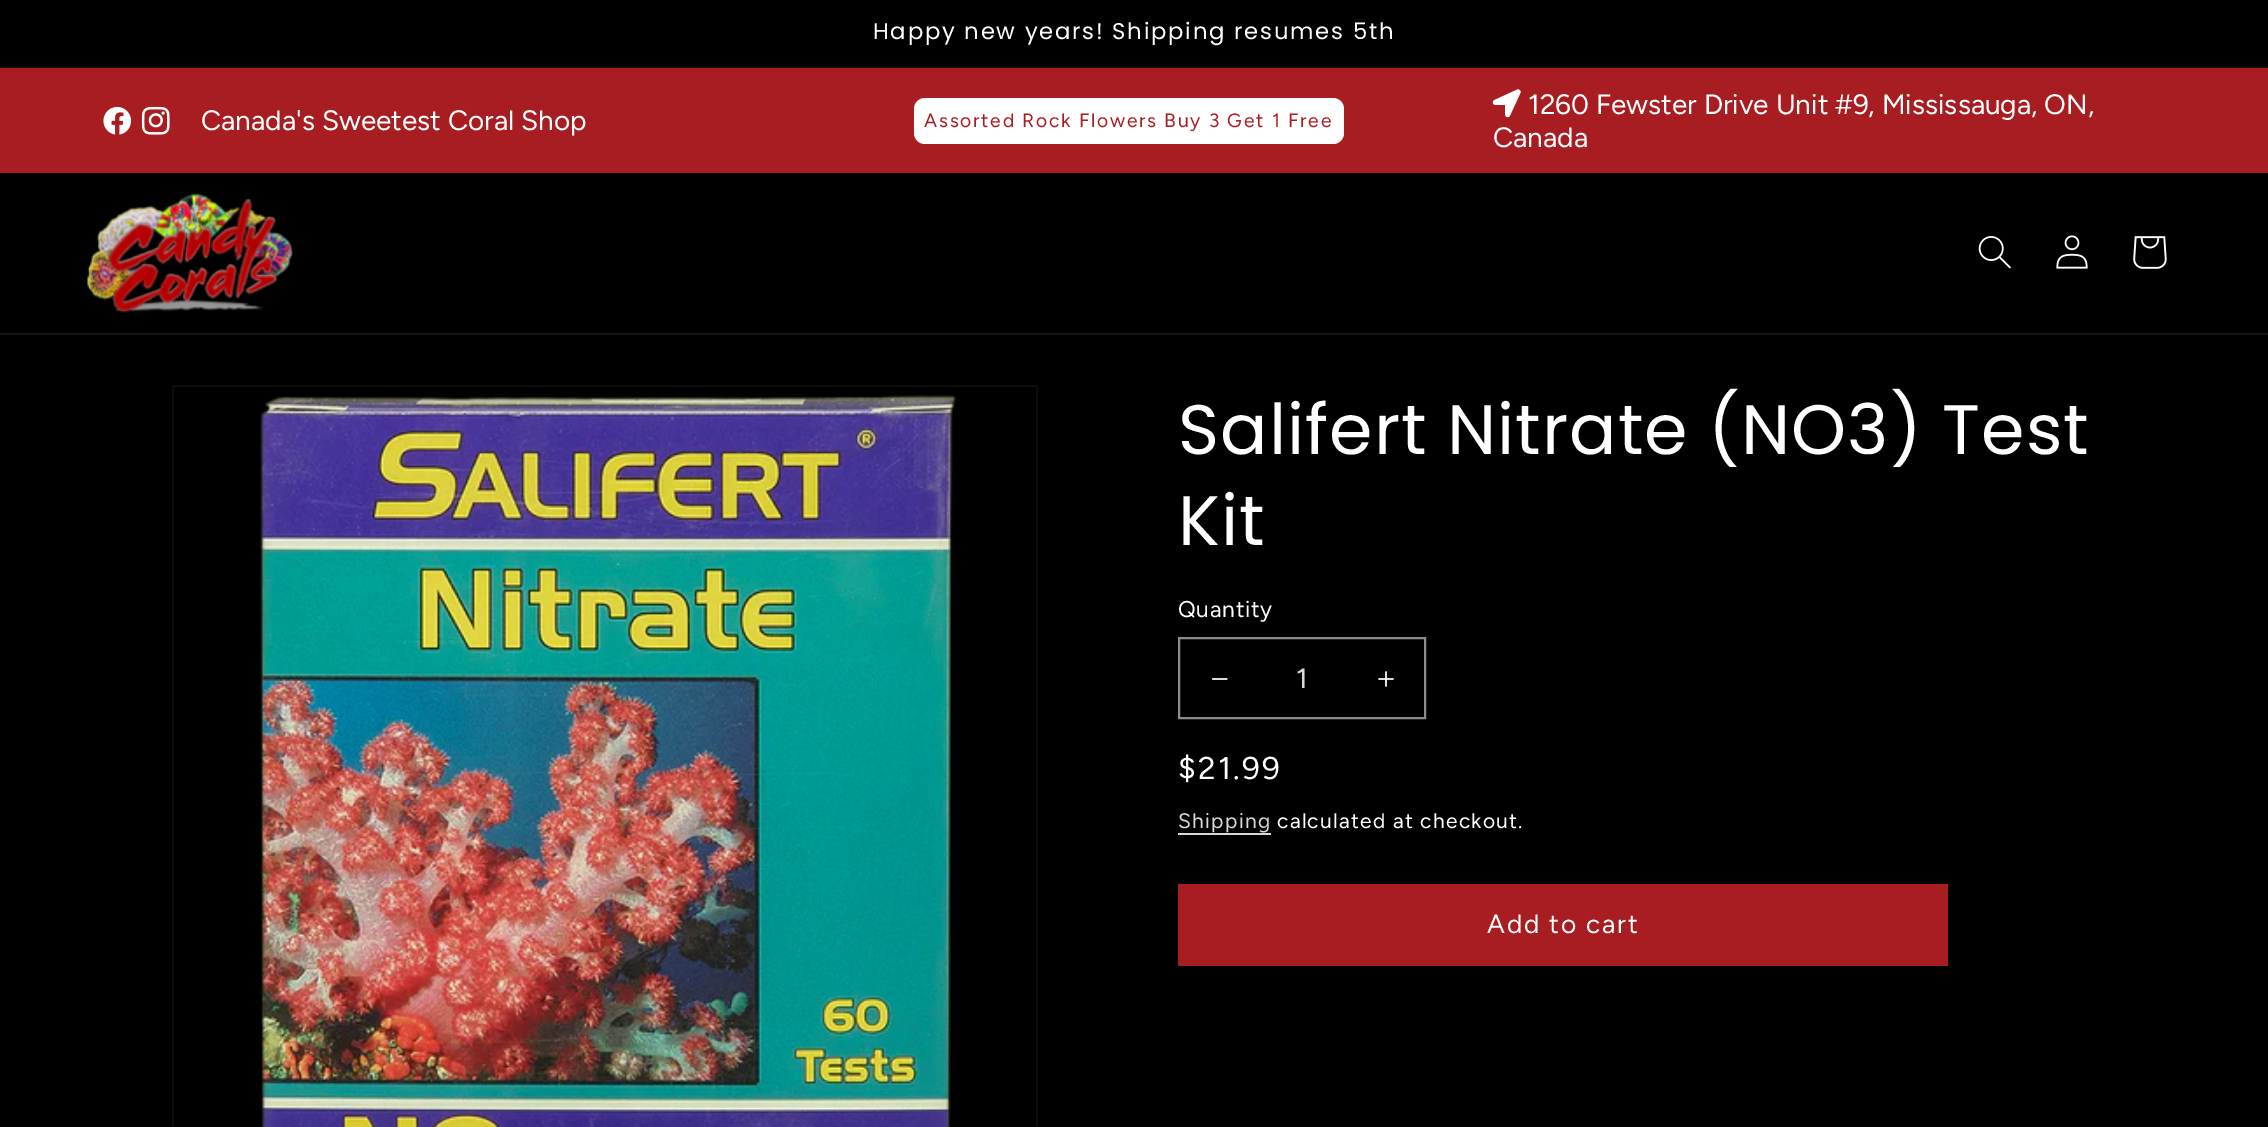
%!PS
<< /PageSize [2268 1127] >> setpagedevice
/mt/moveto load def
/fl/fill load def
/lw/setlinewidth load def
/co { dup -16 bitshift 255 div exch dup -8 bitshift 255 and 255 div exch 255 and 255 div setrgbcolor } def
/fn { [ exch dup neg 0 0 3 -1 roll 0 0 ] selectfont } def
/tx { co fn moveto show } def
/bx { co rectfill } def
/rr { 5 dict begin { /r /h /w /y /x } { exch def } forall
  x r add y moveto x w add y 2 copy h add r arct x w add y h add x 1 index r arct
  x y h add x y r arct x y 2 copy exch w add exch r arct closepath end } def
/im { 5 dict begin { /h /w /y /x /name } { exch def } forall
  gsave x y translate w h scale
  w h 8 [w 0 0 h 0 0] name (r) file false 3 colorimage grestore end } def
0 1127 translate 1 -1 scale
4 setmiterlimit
0 0 2268 1127 16#000000 bx
0 67 2268 1 16#141414 bx
0 68 2268 105 16#A71D21 bx
(media/1.raw) 103 106 29 29 im
(media/2.raw) 141 106 29 29 im
16#FFFFFF co
914 98 430 46 11 rr fl
(media/3.raw) 1492 89 29 29 im
0 333 2268 2 16#141414 bx
(media/4.raw) 87 193 206 120 im
(media/5.raw) 1978 236 33 33 im
(media/6.raw) 2056 235 32 34 im
(media/7.raw) 2133 236 34 33 im
16#0D0D0D co
2 lw
173 386 864 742 rectstroke
(media/8.raw) 260 395 696 732 im
(media/9.raw) 1212 678 16 2 im
(media/10.raw) 1378 671 16 16 im
16#8C8C8C co
1179 638 246 80 rectstroke
1178 833 93 2 16#D9D9D9 bx
1178 884 770 82 16#A71D21 bx
/Poppins-Regular 22.75 fn
16#FFFFFF co
873 39 mt 1.75 0 (Happy new years! Shipping resumes 5th) ashow
(Canada's Sweetest Coral Shop) 201 130 /Figtree-Regular 28 16#FFFFFF tx
/Figtree-Regular 19.25 fn
16#A71D21 co
924 127 mt 1.75 0 (Assorted Rock Flowers Buy 3 Get 1 Free) ashow
(1260 Fewster Drive Unit #9, Mississauga, ON,) 1528 114 /Figtree-Regular 28 16#FFFFFF tx
(Canada) 1493 147 /Figtree-Regular 28 16#FFFFFF tx
/Poppins-Regular 70 fn
1178 454 mt 1.05 0 (Salifert Nitrate \(NO3\) Test) ashow
1178 545 mt 1.05 0 (Kit) ashow
/Figtree-Regular 22.75 fn
1178 617 mt .75 0 (Quantity) ashow
(1) 1296 688 /Figtree-Regular 28 16#D9D9D9 tx
/Figtree-Regular 31.5 fn
16#FFFFFF co
1178 779 mt 2.25 0 ($21.99) ashow
/Figtree-Regular 21 fn
16#D9D9D9 co
1178 828 mt 1.25 0 (Shipping) ashow
16#FFFFFF co
1277 828 mt 1.25 0 (calculated at checkout.) ashow
/Figtree-Regular 26.25 fn
1487 933 mt 1.75 0 (Add to cart) ashow
showpage
